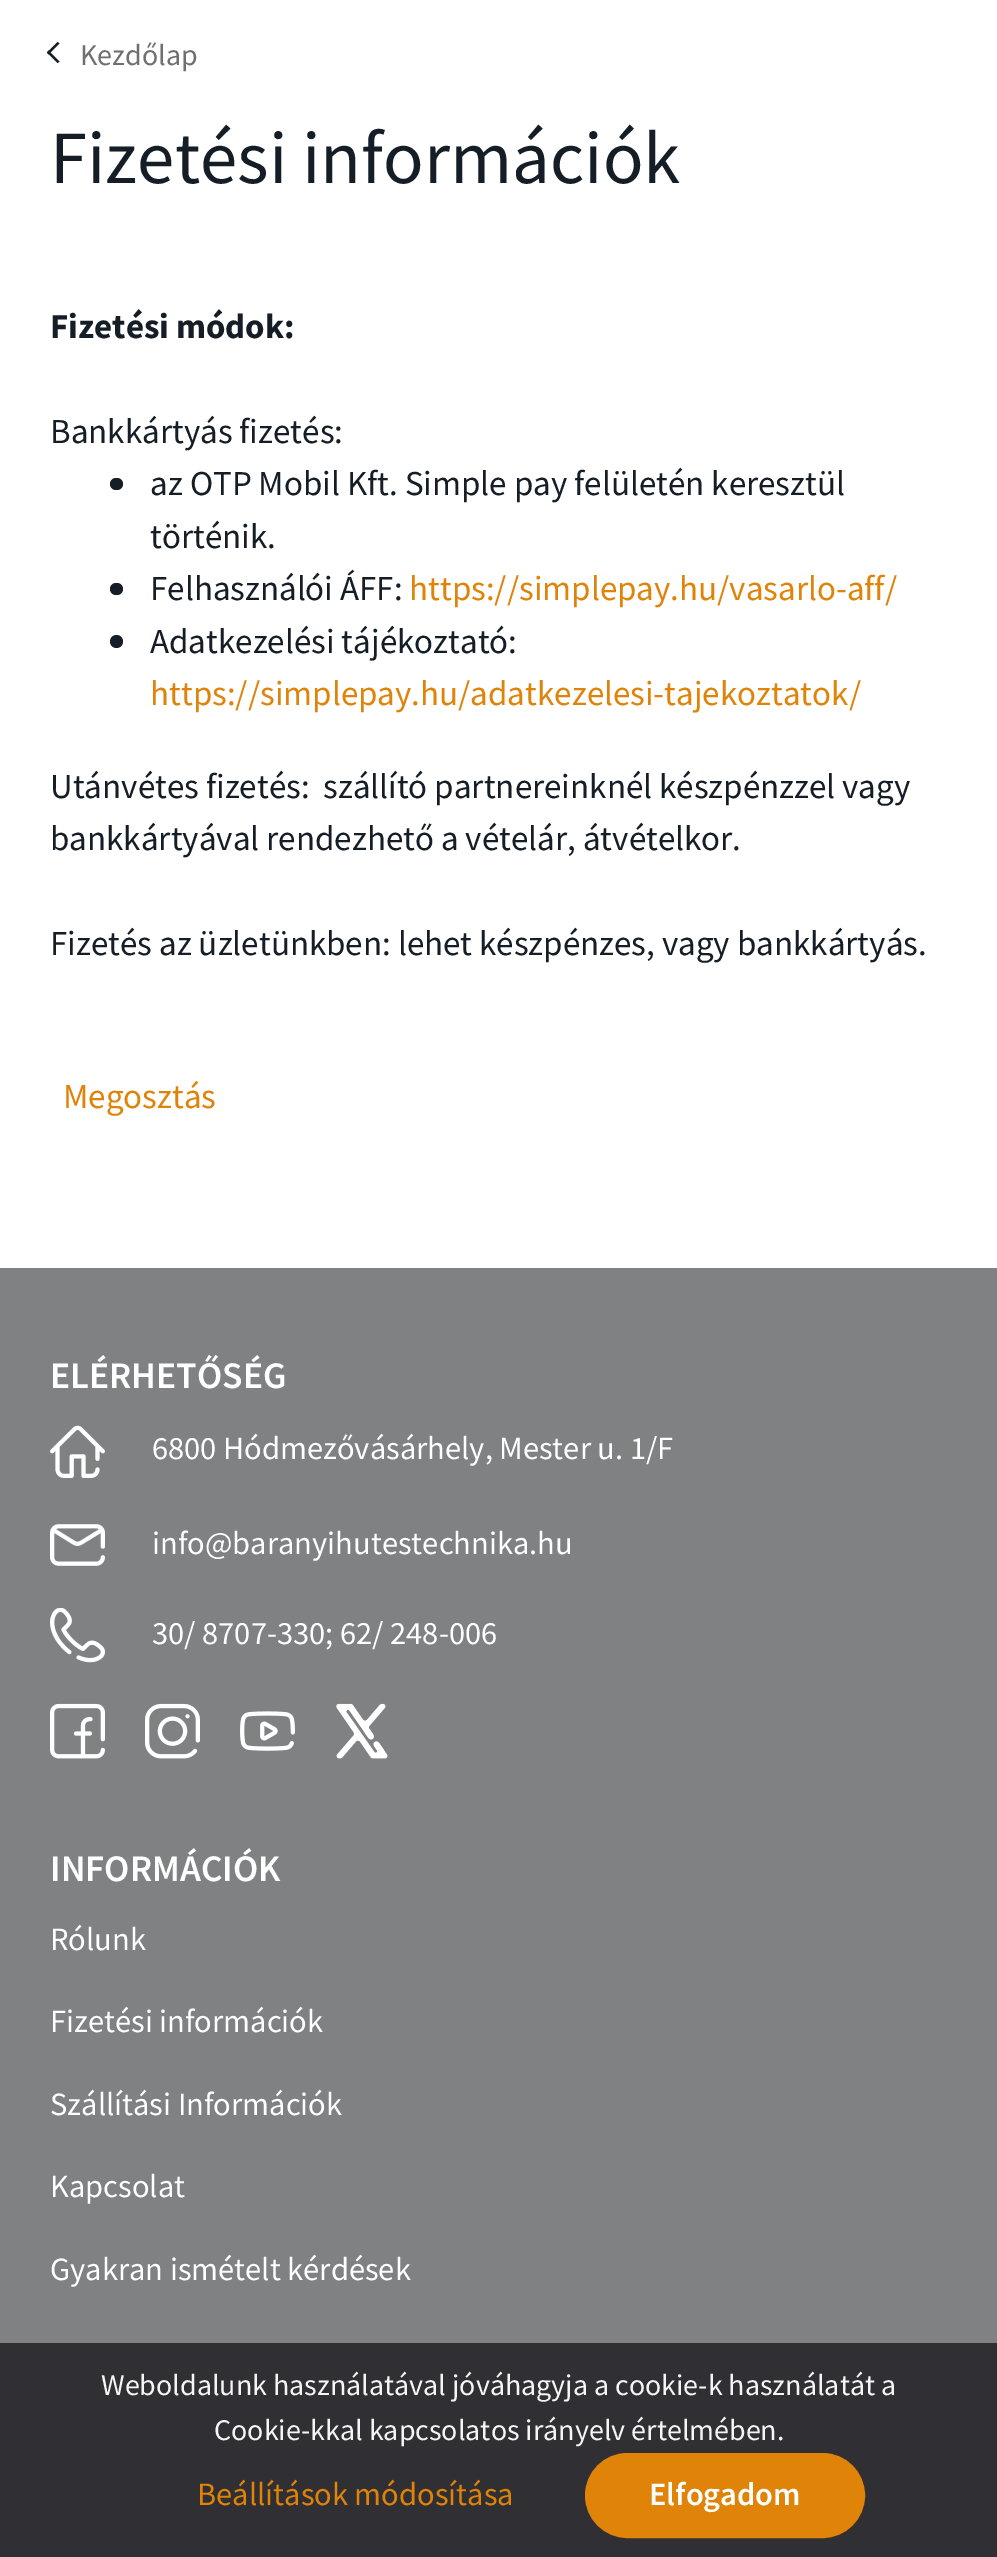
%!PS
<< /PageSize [997 2557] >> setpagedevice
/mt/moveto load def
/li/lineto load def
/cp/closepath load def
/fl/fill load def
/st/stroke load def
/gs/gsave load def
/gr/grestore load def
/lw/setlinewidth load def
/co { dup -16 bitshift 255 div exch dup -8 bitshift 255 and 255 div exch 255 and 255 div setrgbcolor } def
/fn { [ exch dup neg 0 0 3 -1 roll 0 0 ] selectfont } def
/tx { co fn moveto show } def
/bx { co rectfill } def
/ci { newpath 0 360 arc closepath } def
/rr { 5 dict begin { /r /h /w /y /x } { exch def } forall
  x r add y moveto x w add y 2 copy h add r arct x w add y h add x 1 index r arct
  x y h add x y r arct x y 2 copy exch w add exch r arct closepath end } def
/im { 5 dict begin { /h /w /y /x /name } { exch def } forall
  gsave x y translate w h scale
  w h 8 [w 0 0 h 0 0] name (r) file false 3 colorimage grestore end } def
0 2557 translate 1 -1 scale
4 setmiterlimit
0 0 997 2557 16#FFFFFF bx
16#151E26 co
59.5 61.5 mt 57.5 63 li 47 52.5 li 48.5 50.5 li cp fl
59.5 43.5 mt 48.5 54.5 li 47 52.5 li 57.5 42 li cp fl
110 478 13 12 6 rr fl
110 583 13 12 6 rr fl
116.5 641.5 6.5 ci fl
0 1268 997 1075 16#808182 bx
(media/1.raw) 50 1425 55 53 im
(media/2.raw) 50 1524 55 42 im
(media/3.raw) 50 1608 55 55 im
(media/4.raw) 50 1703 55 56 im
(media/5.raw) 145 1703 55 56 im
(media/6.raw) 240 1711 55 40 im
(media/7.raw) 336 1703 52 56 im
0 2343 997 214 16#302F34 bx
16#E08309 co
586.5 2454.5 277 82 41 rr gs fl gr
3 lw
st
(Kezdőlap) 80 65 /SourceSansPro-Regular 30 16#6F6F6F tx
(Fizetési információk) 50 183 /SourceSansPro-Regular 75 16#151E26 tx
(Fizetési módok:) 50 338 /SourceSansPro-Bold 35 16#151E26 tx
(Bankkártyás fizetés:) 50 443 /SourceSansPro-Regular 35 16#151E26 tx
(az OTP Mobil Kft. Simple pay felületén keresztül) 150 495 /SourceSansPro-Regular 35 16#151E26 tx
(történik.) 150 548 /SourceSansPro-Regular 35 16#151E26 tx
(Felhasználói ÁFF:) 150 600 /SourceSansPro-Regular 35 16#151E26 tx
(https://simplepay.hu/vasarlo-aff/) 409 600 /SourceSansPro-Regular 35 16#E08309 tx
(Adatkezelési tájékoztató:) 150 653 /SourceSansPro-Regular 35 16#151E26 tx
(https://simplepay.hu/adatkezelesi-tajekoztatok/) 150 705 /SourceSansPro-Regular 35 16#E08309 tx
(Utánvétes fizetés:) 50 798 /SourceSansPro-Regular 35 16#151E26 tx
(szállító partnereinknél készpénzzel vagy) 323 798 /SourceSansPro-Regular 35 16#151E26 tx
(bankkártyával rendezhető a vételár, átvételkor.) 50 850 /SourceSansPro-Regular 35 16#151E26 tx
(Fizetés az üzletünkben: lehet készpénzes, vagy bankkártyás.) 50 955 /SourceSansPro-Regular 35 16#151E26 tx
(Megosztás) 63 1108 /SourceSansPro-Regular 35 16#E08309 tx
(ELÉRHETŐSÉG) 50 1388 /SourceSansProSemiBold-SemiBold 37.5 16#FFFFFF tx
(6800 Hódmezővásárhely, Mester u. 1/F) 152 1459 /SourceSansPro-Regular 32.5 16#FFFFFF tx
(info@baranyihutestechnika.hu) 152 1554 /SourceSansPro-Regular 32.5 16#FFFFFF tx
(30/ 8707-330; 62/ 248-006) 152 1644 /SourceSansPro-Regular 32.5 16#FFFFFF tx
(INFORMÁCIÓK) 50 1881 /SourceSansProSemiBold-SemiBold 37.5 16#FFFFFF tx
(Rólunk) 50 1950 /SourceSansPro-Regular 32.5 16#FFFFFF tx
(Fizetési információk) 50 2032 /SourceSansPro-Regular 32.5 16#FFFFFF tx
(Szállítási Információk) 50 2115 /SourceSansPro-Regular 32.5 16#FFFFFF tx
(Kapcsolat) 50 2197 /SourceSansPro-Regular 32.5 16#FFFFFF tx
(Gyakran ismételt kérdések) 50 2280 /SourceSansPro-Regular 32.5 16#FFFFFF tx
(Weboldalunk használatával jóváhagyja a cookie-k használatát a) 101 2395 /SourceSansPro-Regular 30 16#F5F5F5 tx
(Cookie-kkal kapcsolatos irányelv értelmében.) 214 2440 /SourceSansPro-Regular 30 16#F5F5F5 tx
(Beállítások módosítása) 197 2505 /SourceSansPro-Regular 32.5 16#E08309 tx
(Elfogadom) 649 2505 /SourceSansProSemiBold-SemiBold 32.5 16#FFFFFF tx
showpage
